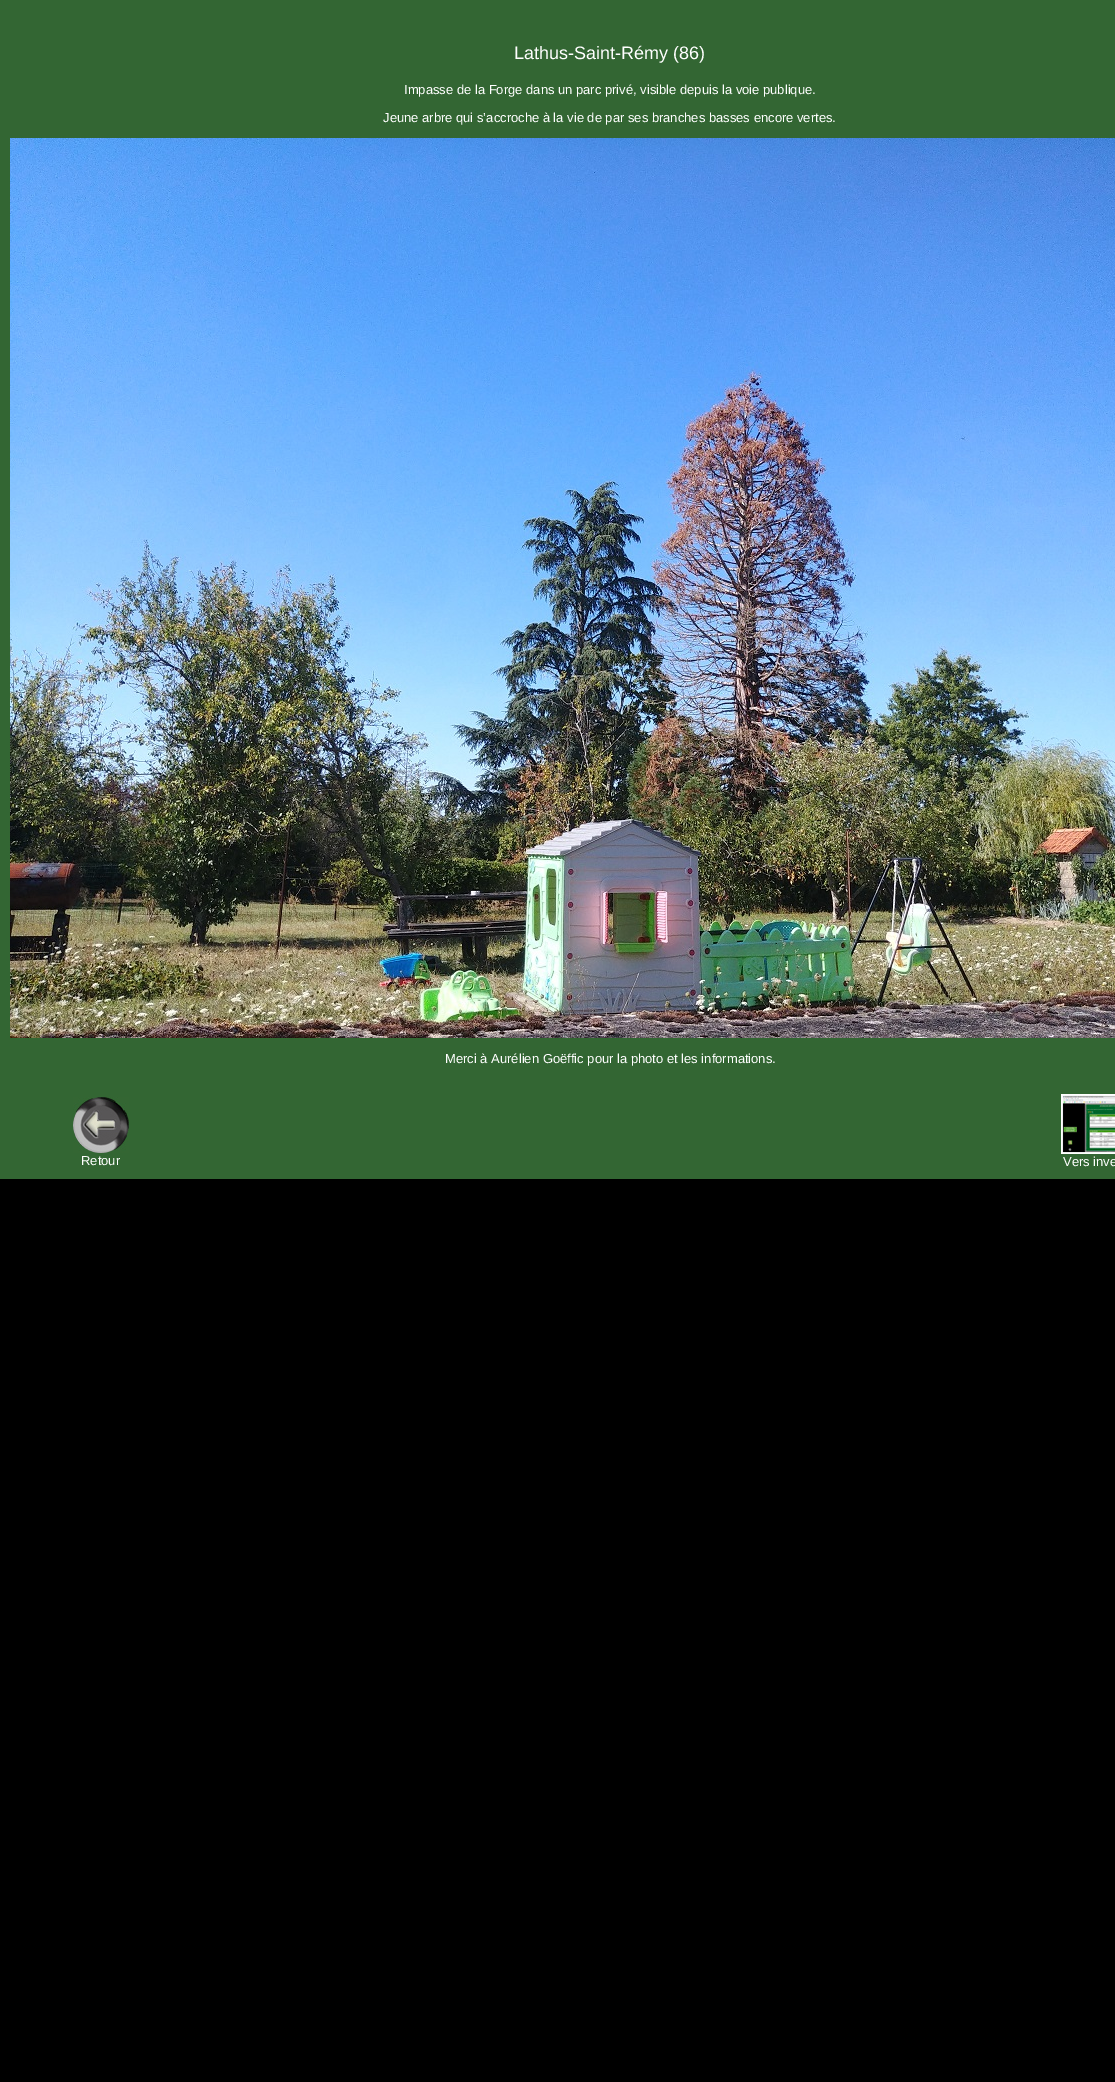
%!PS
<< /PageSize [1115 2082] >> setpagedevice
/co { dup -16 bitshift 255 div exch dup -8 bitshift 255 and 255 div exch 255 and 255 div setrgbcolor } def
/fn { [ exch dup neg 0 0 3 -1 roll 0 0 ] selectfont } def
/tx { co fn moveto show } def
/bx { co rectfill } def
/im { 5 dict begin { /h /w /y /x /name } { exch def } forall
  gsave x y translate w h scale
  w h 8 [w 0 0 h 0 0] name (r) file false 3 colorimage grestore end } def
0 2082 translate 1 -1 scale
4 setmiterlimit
0 0 1115 2082 16#000000 bx
0 0 1115 1179 16#336633 bx
(media/1.raw) 10 138 1105 900 im
(media/2.raw) 73 1097 56 56 im
(media/3.raw) 1061 1094 54 60 im
(Lathus-Saint-Rémy \(86\)) 514 59 /LiberationSans-Regular 18 16#FFFFFF tx
(Impasse de la Forge dans un parc privé, visible depuis la voie publique.) 404 94 /LiberationSans-Regular 13 16#FFFFFF tx
(Jeune arbre qui s’accroche à la vie de par ses branches basses encore vertes.) 383 122 /LiberationSans-Regular 13 16#FFFFFF tx
(Merci à Aurélien Goëffic pour la photo et les informations.) 445 1063 /LiberationSans-Regular 13 16#FFFFFF tx
(Retour) 81 1165 /LiberationSans-Regular 13 16#FFFFFF tx
(Vers inve) 1063 1166 /LiberationSans-Regular 13 16#FFFFFF tx
showpage
